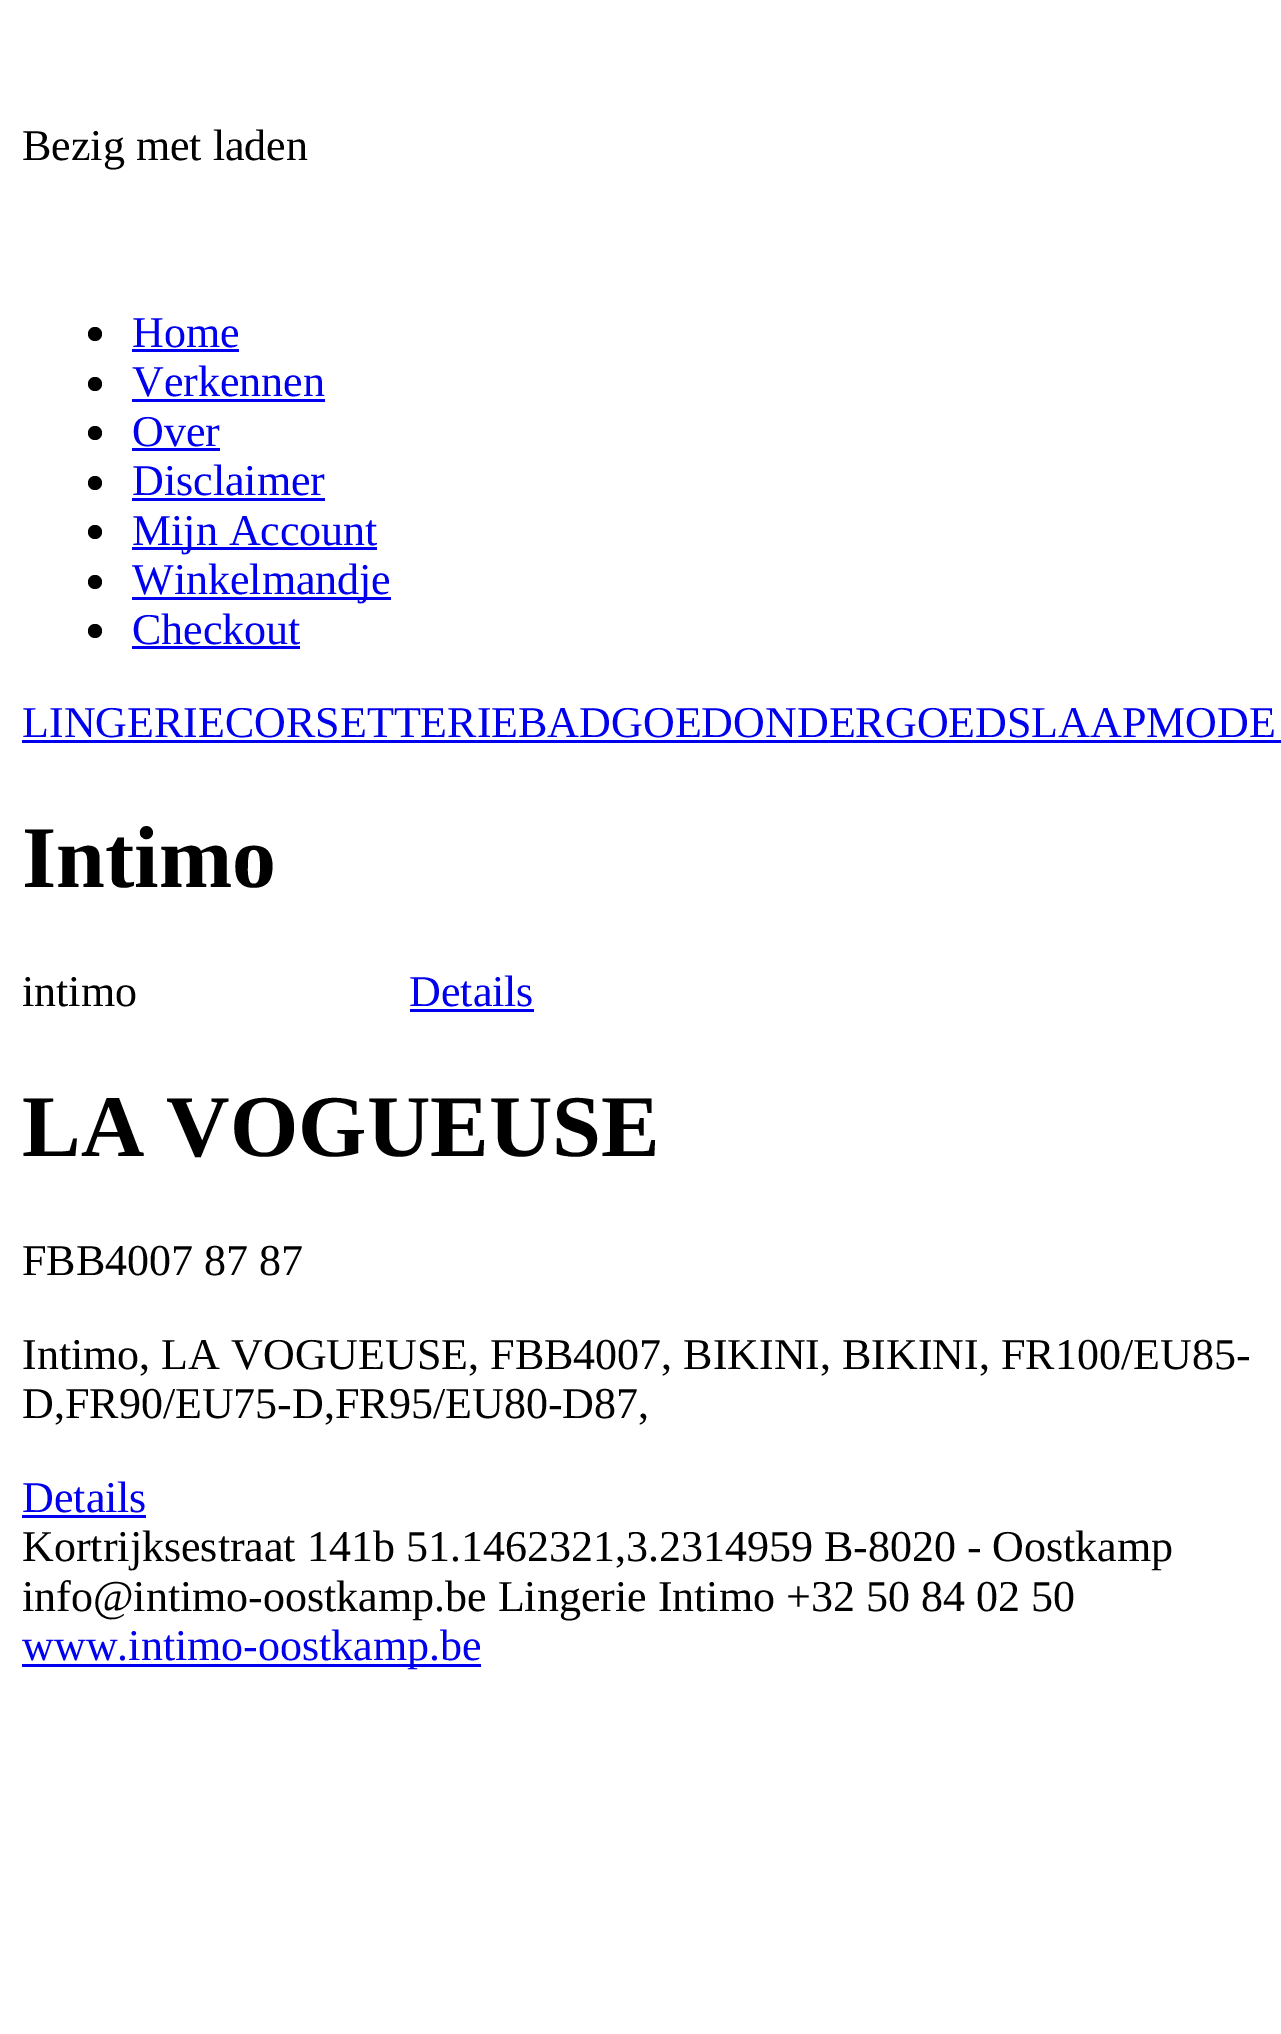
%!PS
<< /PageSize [1281 2034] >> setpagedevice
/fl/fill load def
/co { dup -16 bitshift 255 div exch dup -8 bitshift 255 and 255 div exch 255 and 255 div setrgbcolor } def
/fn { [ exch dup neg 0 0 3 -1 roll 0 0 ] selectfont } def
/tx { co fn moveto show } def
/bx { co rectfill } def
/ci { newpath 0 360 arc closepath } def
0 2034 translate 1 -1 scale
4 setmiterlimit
0 0 1281 2034 16#FFFFFF bx
16#000000 co
95 334 7 ci fl
132 349 107 3 16#0000EE bx
16#000000 co
95 384 7 ci fl
132 399 193 3 16#0000EE bx
16#000000 co
95 433 7 ci fl
132 448 88 3 16#0000EE bx
16#000000 co
95 483 7 ci fl
132 498 193 3 16#0000EE bx
16#000000 co
95 532 7 ci fl
132 547 245 3 16#0000EE bx
16#000000 co
95 582 7 ci fl
132 597 259 3 16#0000EE bx
16#000000 co
95 631 7 ci fl
132 646 168 3 16#0000EE bx
22 740 1259 3 16#0000EE bx
410 1009 124 3 16#0000EE bx
22 1515 124 3 16#0000EE bx
22 1664 459 3 16#0000EE bx
(Bezig met laden) 22 160 /LiberationSerif-Regular 44 16#000000 tx
(Home) 132 347 /LiberationSerif-Regular 44 16#0000EE tx
(Verkennen) 132 396 /LiberationSerif-Regular 44 16#0000EE tx
(Over) 132 446 /LiberationSerif-Regular 44 16#0000EE tx
(Disclaimer) 132 495 /LiberationSerif-Regular 44 16#0000EE tx
(Mijn Account) 132 545 /LiberationSerif-Regular 44 16#0000EE tx
(Winkelmandje) 132 594 /LiberationSerif-Regular 44 16#0000EE tx
(Checkout) 132 644 /LiberationSerif-Regular 44 16#0000EE tx
(LINGERIECORSETTERIEBADGOEDONDERGOEDSLAAPMODE) 22 737 /LiberationSerif-Regular 44 16#0000EE tx
(Intimo) 22 887 /LiberationSerif-Bold 88 16#000000 tx
(intimo) 22 1006 /LiberationSerif-Regular 44 16#000000 tx
(Details) 409 1006 /LiberationSerif-Regular 44 16#0000EE tx
(LA VOGUEUSE) 22 1156 /LiberationSerif-Bold 88 16#000000 tx
(FBB4007 87 87) 22 1275 /LiberationSerif-Regular 44 16#000000 tx
(Intimo, LA VOGUEUSE, FBB4007, BIKINI, BIKINI, FR100/EU85-) 22 1369 /LiberationSerif-Regular 44 16#000000 tx
(D,FR90/EU75-D,FR95/EU80-D87,) 22 1418 /LiberationSerif-Regular 44 16#000000 tx
(Details) 22 1512 /LiberationSerif-Regular 44 16#0000EE tx
(Kortrijksestraat 141b 51.1462321,3.2314959 B-8020 - Oostkamp) 22 1561 /LiberationSerif-Regular 44 16#000000 tx
(info@intimo-oostkamp.be Lingerie Intimo +32 50 84 02 50) 22 1611 /LiberationSerif-Regular 44 16#000000 tx
(www.intimo-oostkamp.be) 22 1660 /LiberationSerif-Regular 44 16#0000EE tx
showpage
